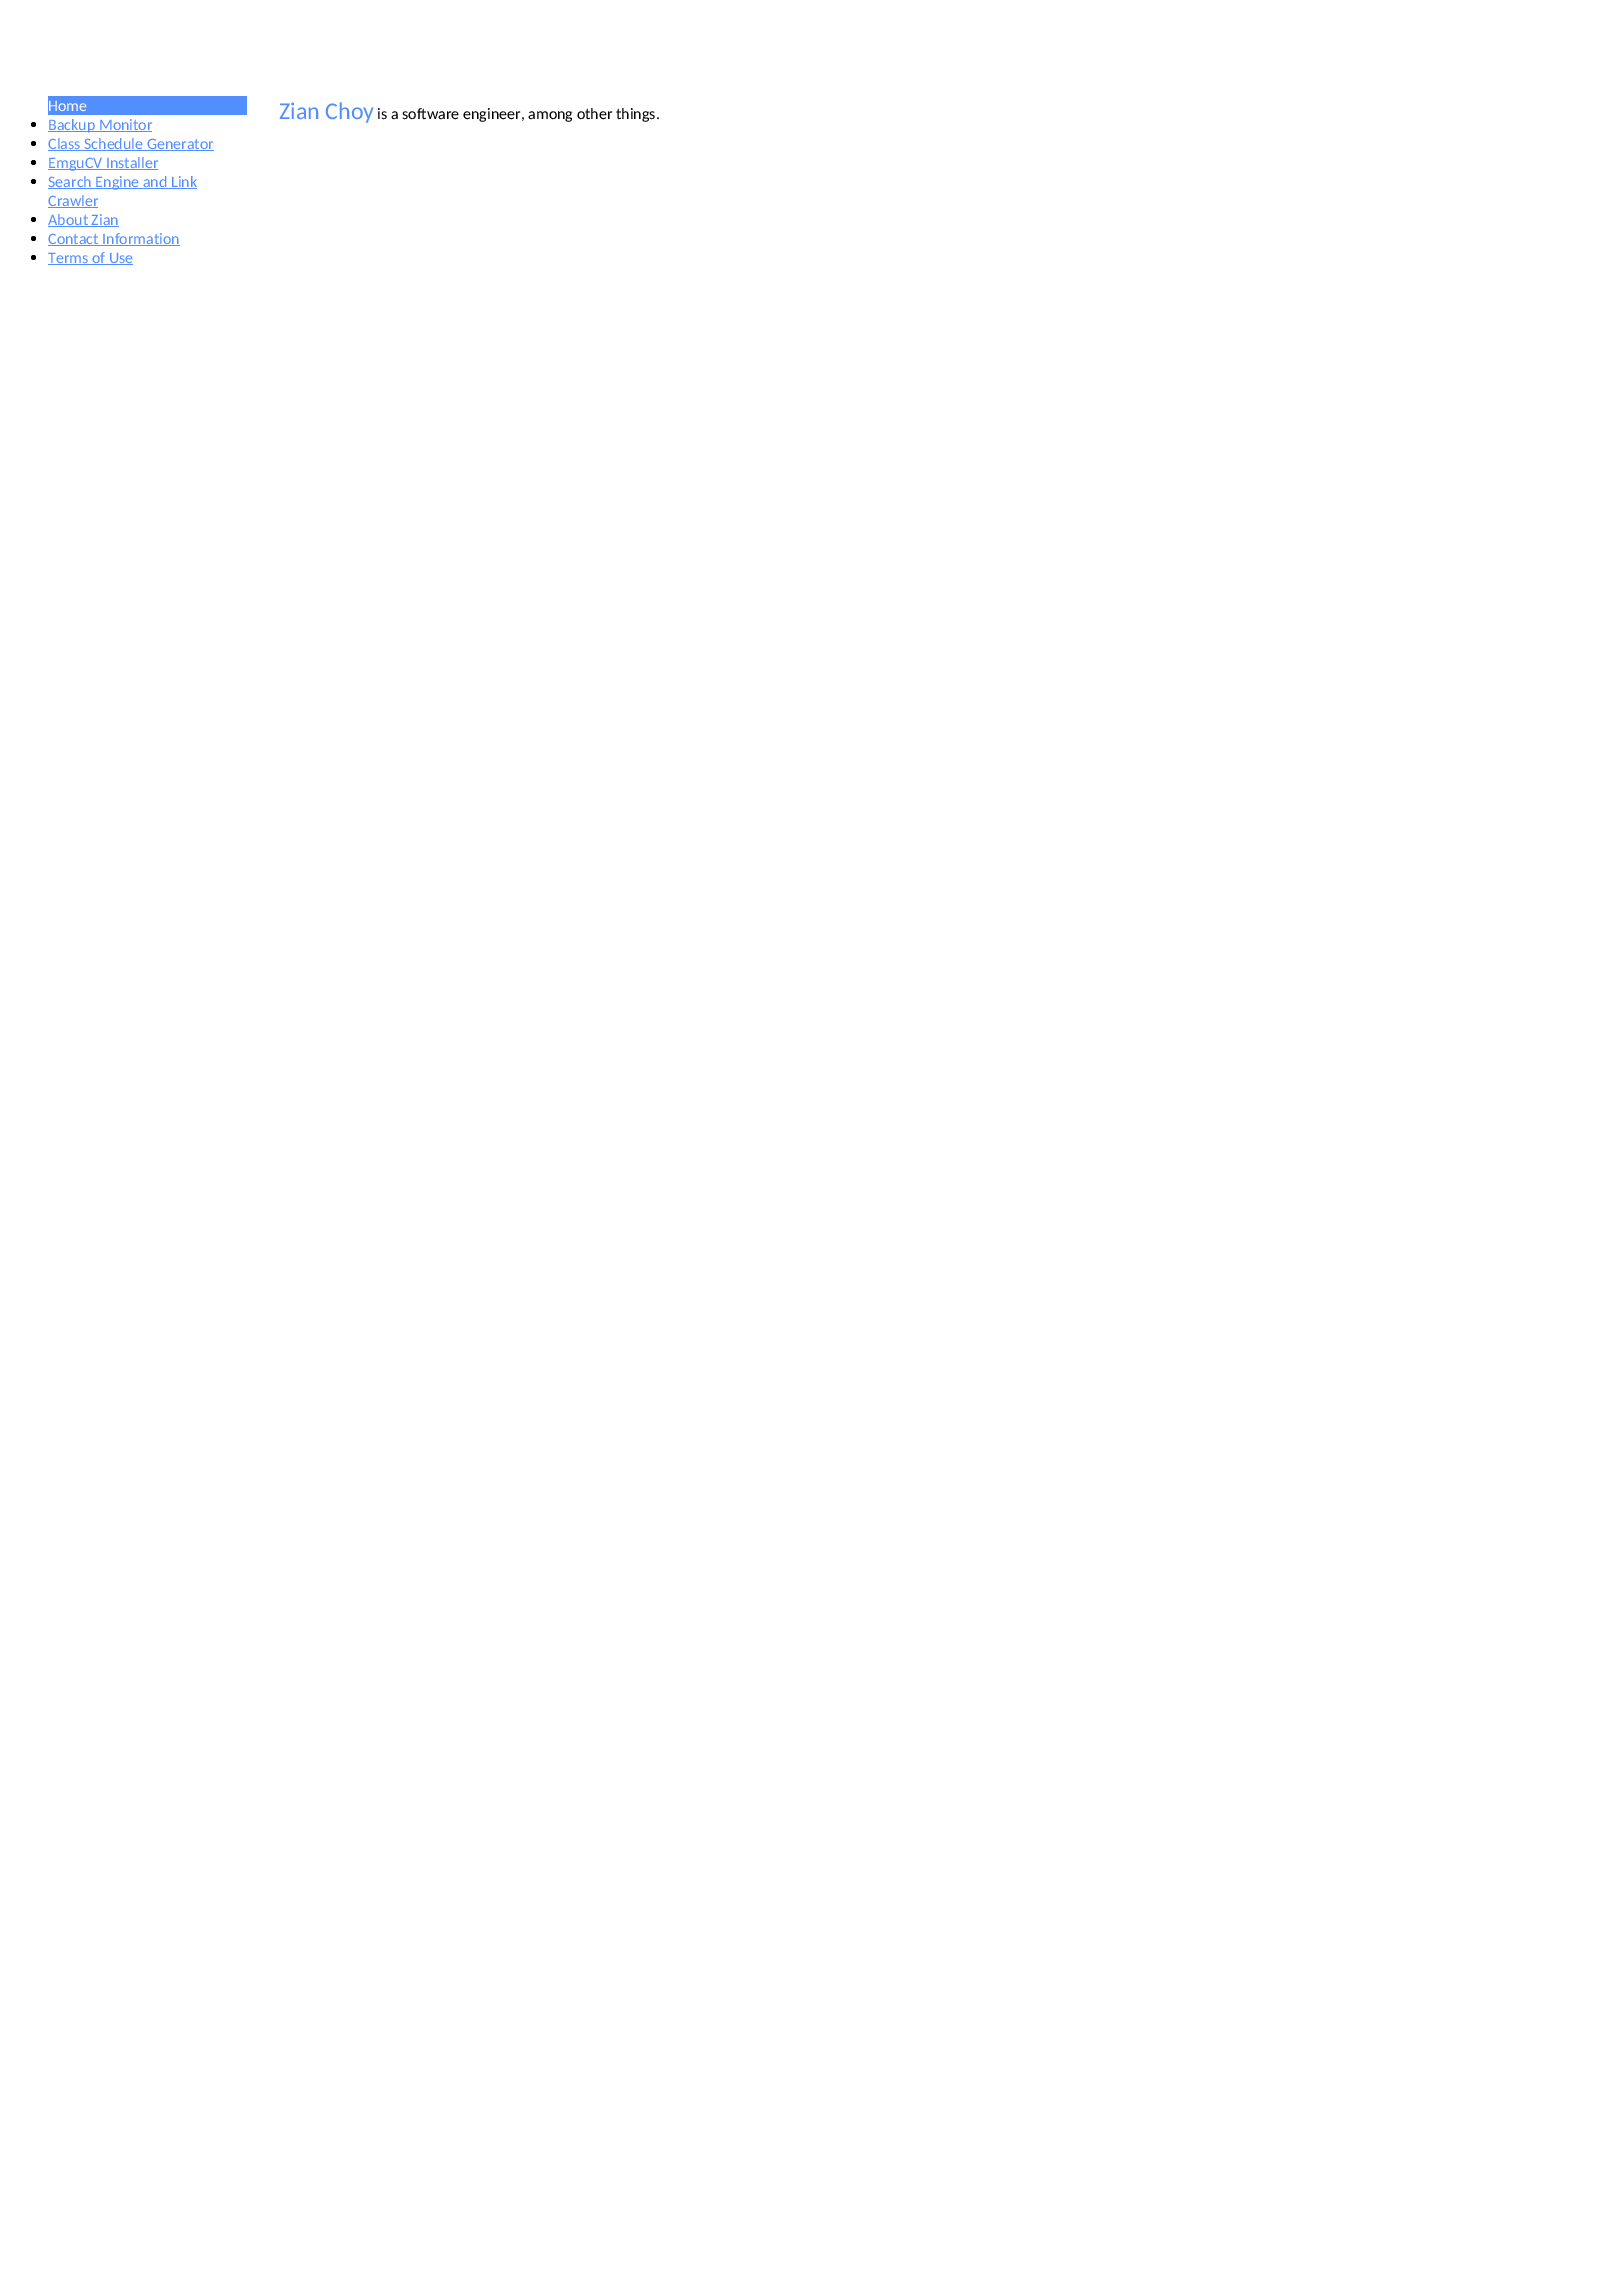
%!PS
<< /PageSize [1606 2282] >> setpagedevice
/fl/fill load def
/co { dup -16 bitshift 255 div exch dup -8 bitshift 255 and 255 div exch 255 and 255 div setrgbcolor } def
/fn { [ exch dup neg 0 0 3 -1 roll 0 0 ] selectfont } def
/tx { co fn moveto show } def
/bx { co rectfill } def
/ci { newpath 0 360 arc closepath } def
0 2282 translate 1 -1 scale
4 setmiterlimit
0 0 1606 2282 16#FFFFFF bx
48 96 199 19 16#538EFF bx
16#000000 co
33.5 124.5 2.5 ci fl
48 131 104 1 16#538EFF bx
16#000000 co
33.5 143.5 2.5 ci fl
48 150 166 1 16#538EFF bx
16#000000 co
33.5 162.5 2.5 ci fl
48 169 110 1 16#538EFF bx
16#000000 co
33.5 181.5 2.5 ci fl
48 188 149 1 16#538EFF bx
48 207 50 1 16#538EFF bx
16#000000 co
33.5 219.5 2.5 ci fl
48 226 71 1 16#538EFF bx
16#000000 co
33.5 238.5 2.5 ci fl
48 245 132 1 16#538EFF bx
16#000000 co
33.5 257.5 2.5 ci fl
48 264 85 1 16#538EFF bx
(Home) 48 111 /Carlito-Regular 16 16#FFFFFF tx
(Backup Monitor) 48 130 /Carlito-Regular 16 16#538EFF tx
(Class Schedule Generator) 48 149 /Carlito-Regular 16 16#538EFF tx
(EmguCV Installer) 48 168 /Carlito-Regular 16 16#538EFF tx
(Search Engine and Link) 48 187 /Carlito-Regular 16 16#538EFF tx
(Crawler) 48 206 /Carlito-Regular 16 16#538EFF tx
(About Zian) 48 225 /Carlito-Regular 16 16#538EFF tx
(Contact Information) 48 244 /Carlito-Regular 16 16#538EFF tx
(Terms of Use) 48 263 /Carlito-Regular 16 16#538EFF tx
(Zian Choy) 279 119 /Carlito-Regular 24 16#538EFF tx
(is a software engineer, among other things.) 377 119 /Carlito-Regular 16 16#000000 tx
showpage
